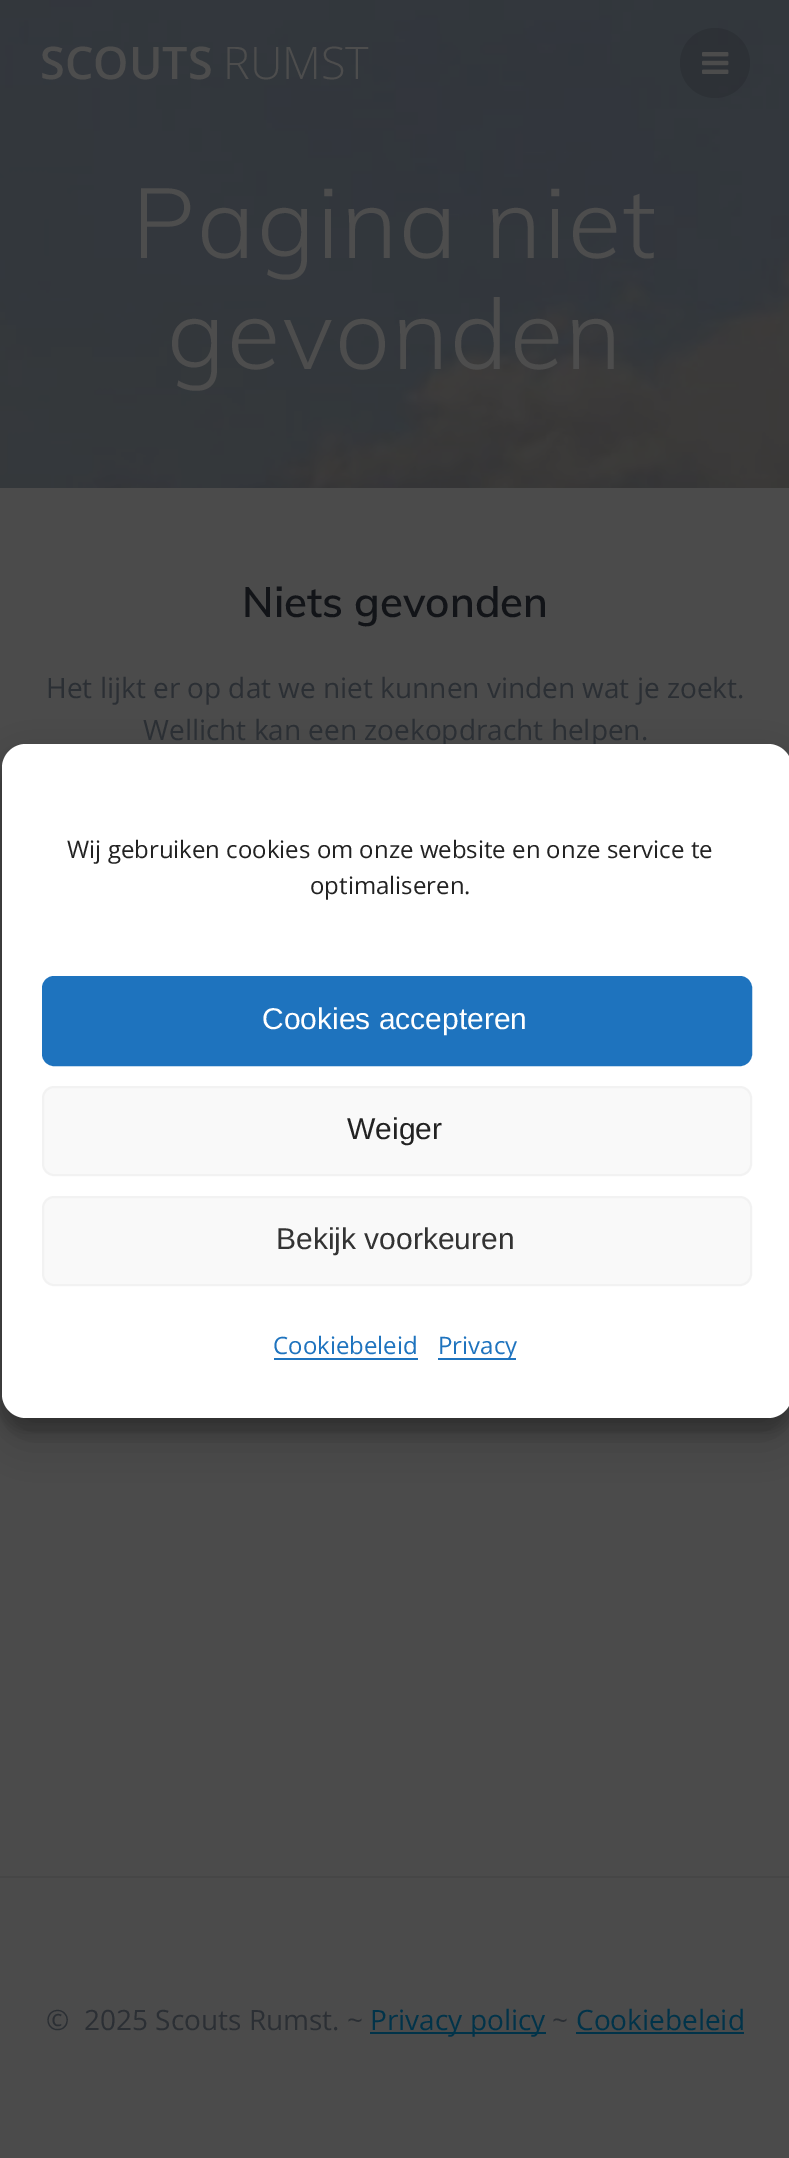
%!PS
<< /PageSize [789 2158] /PageUsesTransparency true >> setpagedevice
/mt/moveto load def
/fl/fill load def
/st/stroke load def
/gs/gsave load def
/gr/grestore load def
/lw/setlinewidth load def
/co { dup -16 bitshift 255 div exch dup -8 bitshift 255 and 255 div exch 255 and 255 div setrgbcolor } def
/fn { [ exch dup neg 0 0 3 -1 roll 0 0 ] selectfont } def
/tx { co fn moveto show } def
/bx { co rectfill } def
/al { dup .setfillconstantalpha .setstrokeconstantalpha } def
/ci { newpath 0 360 arc closepath } def
/rr { 5 dict begin { /r /h /w /y /x } { exch def } forall
  x r add y moveto x w add y 2 copy h add r arct x w add y h add x 1 index r arct
  x y h add x y r arct x y 2 copy exch w add exch r arct closepath end } def
/sh { 12 dict begin { /a /b /q /h /w /y /x } { exch def } forall gsave /was 0 def
  9 -2 -9 { dup b mul 4 div /e exch def 1 sub .425 mul 2.718 exch exp 1 add a .99 .min exch div /now exch def
    1 1 now sub 1 was sub div sub al /was now def
    w h .min e 2 mul add 0 gt { x e sub y e sub w e 2 mul add h e 2 mul add
      q e add b .6 mul add w h .min 2 div e add .min 0 .max rr fill } if } for grestore end } def
/im { 5 dict begin { /h /w /y /x /name } { exch def } forall
  gsave x y translate w h scale
  w h 8 [w 0 0 h 0 0] name (r) file false 3 colorimage grestore end } def
0 .pushpdf14devicefilter
0 2158 translate 1 -1 scale
4 setmiterlimit
0 0 789 2158 16#4B4B4B bx
(media/2.raw) 0 0 789 488 im
0.1 al
16#000000 co
715 63 35 ci fl
1 al
(media/1.raw) 702 52 27 22 im
0 1876 789 2 16#464646 bx
370 2032 176 2 16#013349 bx
576 2032 168 2 16#013349 bx
16#000000 co
2 756 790 674 24 6 .23 sh
2 764 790 674 24 20 .19 sh
(SCOUTS) 40 79 /OpenSans-SemiBold 45 16#4D4D4D tx
(RUMST) 223 79 /OpenSans-Light 45 16#4D4D4D tx
/Muli-Light 98 fn
132 258 mt 1.75 0 (Pagina niet) ashow
167 369 mt 1.75 0 (gevonden) ashow
(Niets gevonden) 242 617 /Muli-SemiBold 42 16#121418 tx
(Het lijkt er op dat we niet kunnen vinden wat je zoekt.) 46 698 /OpenSans-Regular 28 16#2B2F34 tx
(Wellicht kan een zoekopdracht helpen.) 143 740 /OpenSans-Regular 28 16#2B2F34 tx
(©  2025 Scouts Rumst. ~) 46 2030 /OpenSans-Regular 28 16#2B2F34 tx
(Privacy policy) 370 2030 /OpenSans-Regular 28 16#013349 tx
(~) 552 2030 /OpenSans-Regular 28 16#2B2F34 tx
(Cookiebeleid) 576 2030 /OpenSans-Regular 28 16#013349 tx
16#FFFFFF co
2 744 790 674 24 rr fl
(Wij gebruiken cookies om onze website en onze service te) 67 858 /OpenSans-Regular 24 16#222222 tx
(optimaliseren.) 310 894 /OpenSans-Regular 24 16#222222 tx
16#1E73BE co
43 977 708 88 11 rr gs fl gr
2 lw
st
(Cookies accepteren) 262 1029 /LiberationSans-Regular 30 16#FFFFFF tx
16#F9F9F9 co
43 1087 708 88 11 rr gs fl gr
16#F2F2F2 co
st
(Weiger) 347 1139 /LiberationSans-Regular 30 16#222222 tx
16#F9F9F9 co
43 1197 708 88 11 rr gs fl gr
16#F2F2F2 co
st
(Bekijk voorkeuren) 276 1249 /LiberationSans-Regular 30 16#333333 tx
(Cookiebeleid) 273 1354 /OpenSans-Regular 24 16#1E73BE tx
274 1358 144 2 16#1E73BE bx
438 1358 78 2 16#1E73BE bx
(Privacy) 438 1354 /OpenSans-Regular 24 16#1E73BE tx
.poppdf14devicefilter showpage
